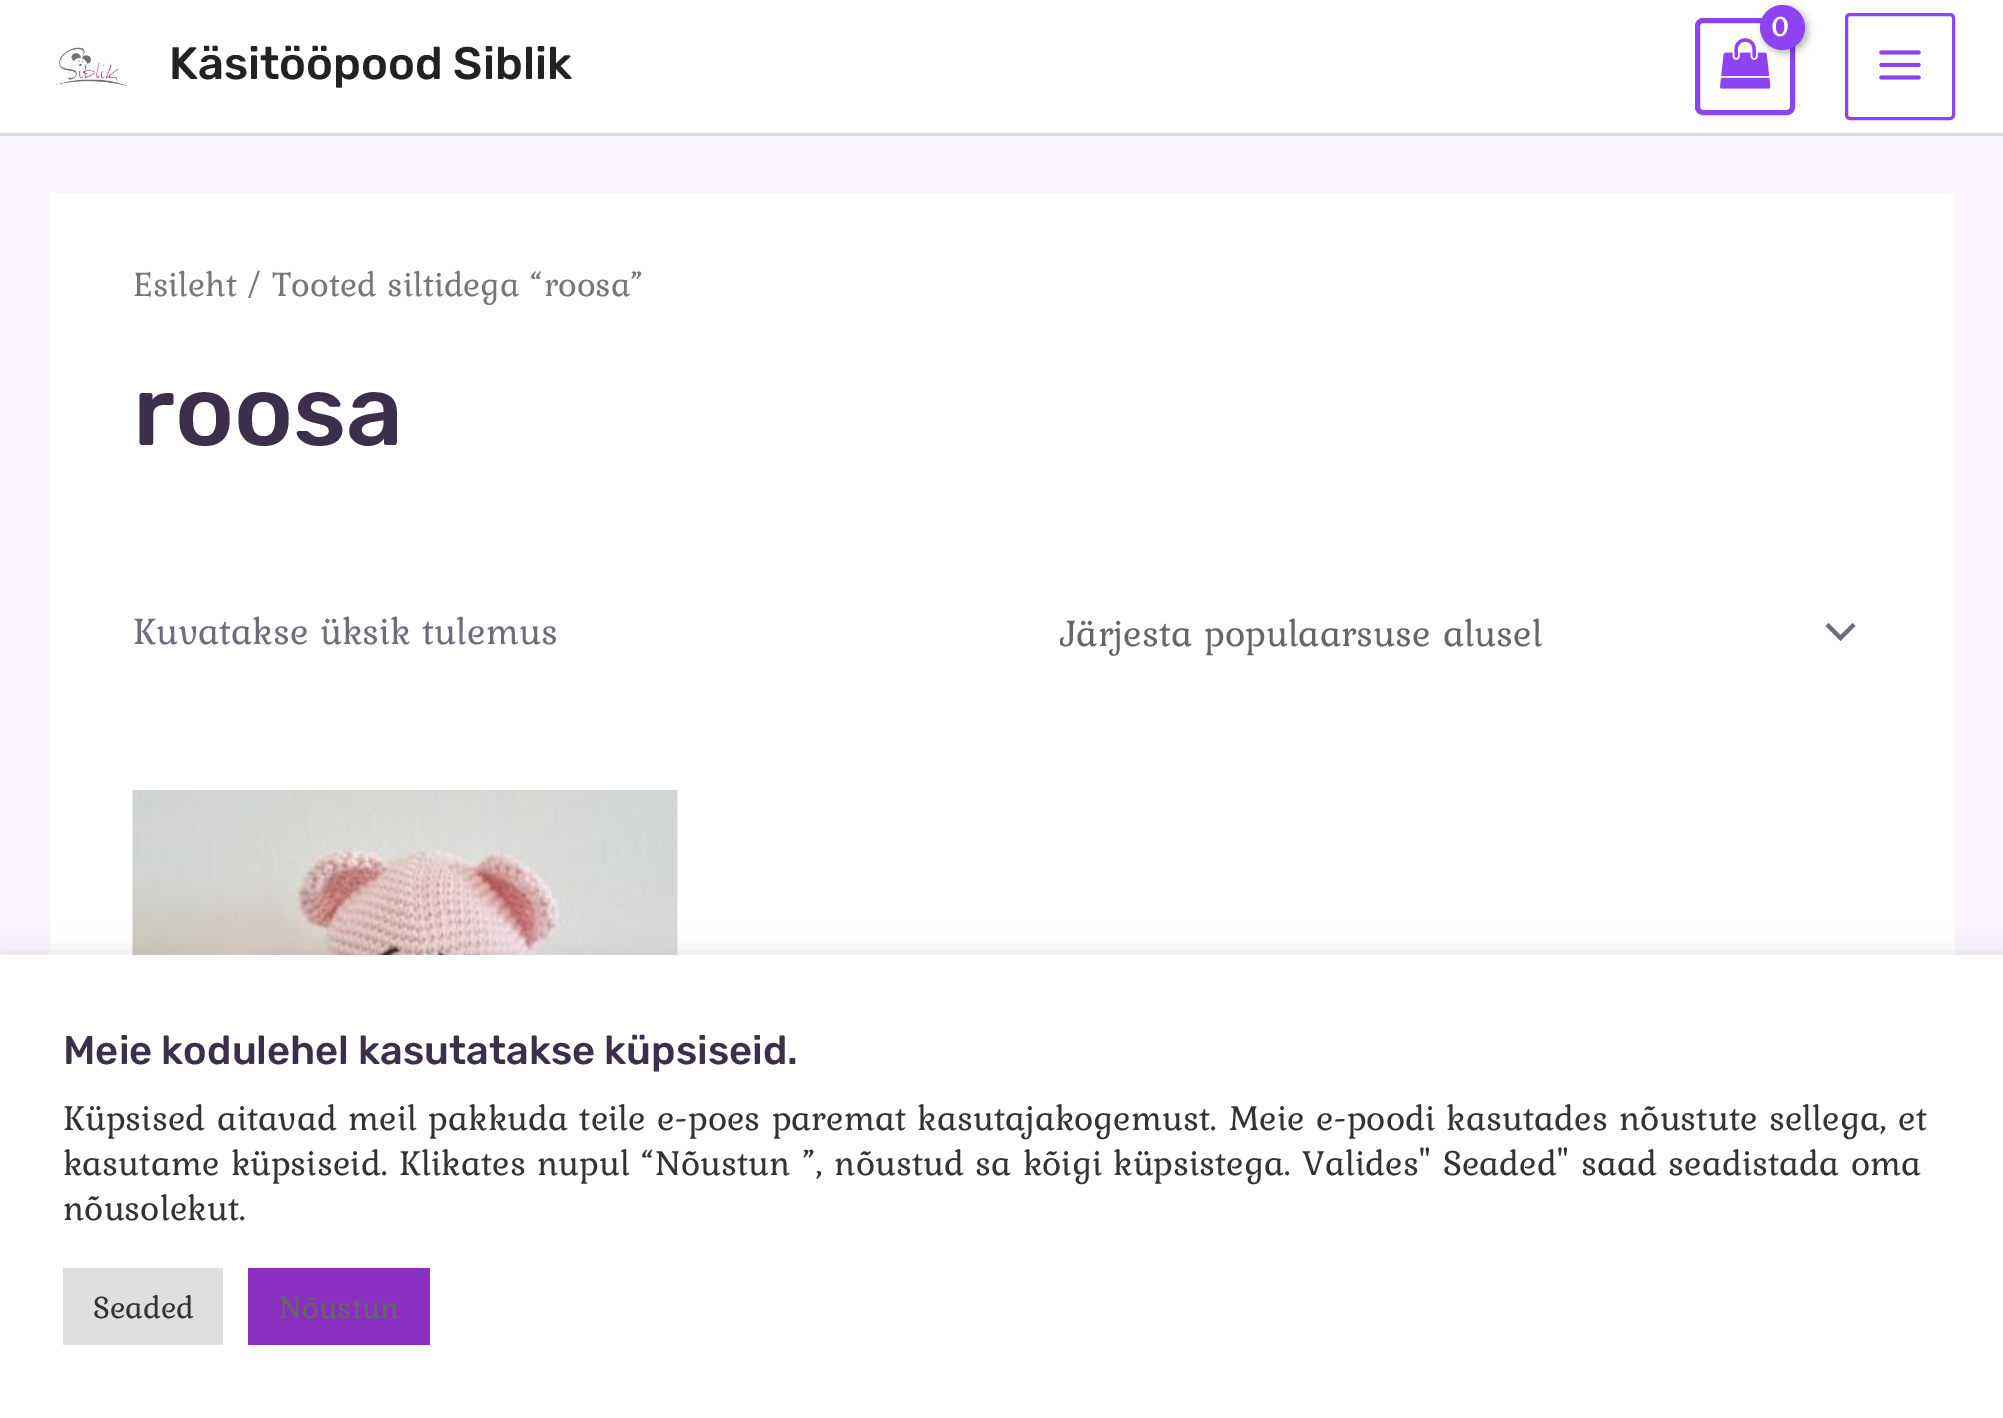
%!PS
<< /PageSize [2003 1418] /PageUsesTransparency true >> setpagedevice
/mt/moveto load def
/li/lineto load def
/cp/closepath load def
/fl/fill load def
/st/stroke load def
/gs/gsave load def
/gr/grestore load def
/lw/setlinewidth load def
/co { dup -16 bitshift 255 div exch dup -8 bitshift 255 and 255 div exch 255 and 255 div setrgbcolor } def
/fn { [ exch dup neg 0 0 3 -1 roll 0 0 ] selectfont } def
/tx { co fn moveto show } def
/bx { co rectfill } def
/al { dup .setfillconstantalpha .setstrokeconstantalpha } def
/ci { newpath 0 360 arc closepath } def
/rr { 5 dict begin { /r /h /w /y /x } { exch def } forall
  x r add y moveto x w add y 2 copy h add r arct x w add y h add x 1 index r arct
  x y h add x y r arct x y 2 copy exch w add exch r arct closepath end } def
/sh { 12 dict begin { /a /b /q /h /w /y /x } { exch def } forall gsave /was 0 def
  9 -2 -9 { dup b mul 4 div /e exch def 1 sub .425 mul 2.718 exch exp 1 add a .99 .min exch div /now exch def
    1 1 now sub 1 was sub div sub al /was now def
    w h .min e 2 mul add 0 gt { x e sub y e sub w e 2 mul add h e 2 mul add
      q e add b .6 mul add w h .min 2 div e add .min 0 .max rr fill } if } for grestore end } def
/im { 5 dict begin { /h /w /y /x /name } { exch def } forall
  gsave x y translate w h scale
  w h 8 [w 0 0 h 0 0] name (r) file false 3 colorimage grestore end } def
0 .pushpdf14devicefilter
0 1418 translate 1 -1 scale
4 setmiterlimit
0 0 2003 1418 16#FAF5FF bx
0 0 2003 133 16#FFFFFF bx
0 133 2003 3 16#DDDDDD bx
16#8E43F0 co
5 lw
1697.5 20.5 95 92 5.5 rr st
(media/1.raw) 1720 38 51 51 im
16#000000 co
1763 8 45 45 22.5 4 .3 sh
16#8E43F0 co
1782.5 27.5 22.5 ci fl
3 lw
1846.5 14.5 107 104 3.5 rr st
(media/2.raw) 1879 50 42 30 im
(media/3.raw) 55 47 72 39 im
50 193 1905 762 16#FFFFFF bx
16#726C7A co
1825.5 626 mt 1840.5 641 li 1855.5 626 li 1852.5 623 li 1840.5 635 li 1828.5 623 li cp fl
(media/4.raw) 132 790 546 165 im
16#ACABAB co
0 953 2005 465 0 12.5 .3 sh
0 955 2003 463 16#FFFFFF bx
63 1268 160 77 16#DEDFE0 bx
248 1268 182 77 16#8A30C1 bx
/Kurale-Bold 28 fn
16#FFFFFF co
1771 36 mt -1 0 (0) ashow
(Käsitööpood Siblik) 169 79 /Rubik-Light 45.5 16#222222 tx
(Esileht / Tooted siltidega “roosa”) 133 296 /Kurale-Regular 35.7 16#777777 tx
(roosa) 133 445 /Rubik-Light 100 16#3C2F4B tx
(Kuvatakse üksik tulemus) 133 644 /Kurale-Regular 38.75 16#726C7A tx
gs
1060 605 735 58 rectclip
(Järjesta populaarsuse alusel) 1060 646 /Kurale-Regular 38.75 16#666666 tx
gr
(Meie kodulehel kasutatakse küpsiseid.) 63 1064 /Rubik-Light 40 16#3C2F4B tx
(Küpsised aitavad meil pakkuda teile e-poes paremat kasutajakogemust. Meie e-poodi kasutades nõustute sellega, et) 63 1130 /Kurale-Regular 36.67 16#333333 tx
(kasutame küpsiseid. Klikates nupul “Nõustun ”, nõustud sa kõigi küpsistega. Valides" Seaded" saad seadistada oma) 63 1175 /Kurale-Regular 36.67 16#333333 tx
(nõusolekut.) 63 1220 /Kurale-Regular 36.67 16#333333 tx
(Seaded) 93 1318 /Kurale-Regular 32.5 16#333333 tx
(Nõustun) 279 1318 /Kurale-Regular 32.5 16#666666 tx
.poppdf14devicefilter showpage
